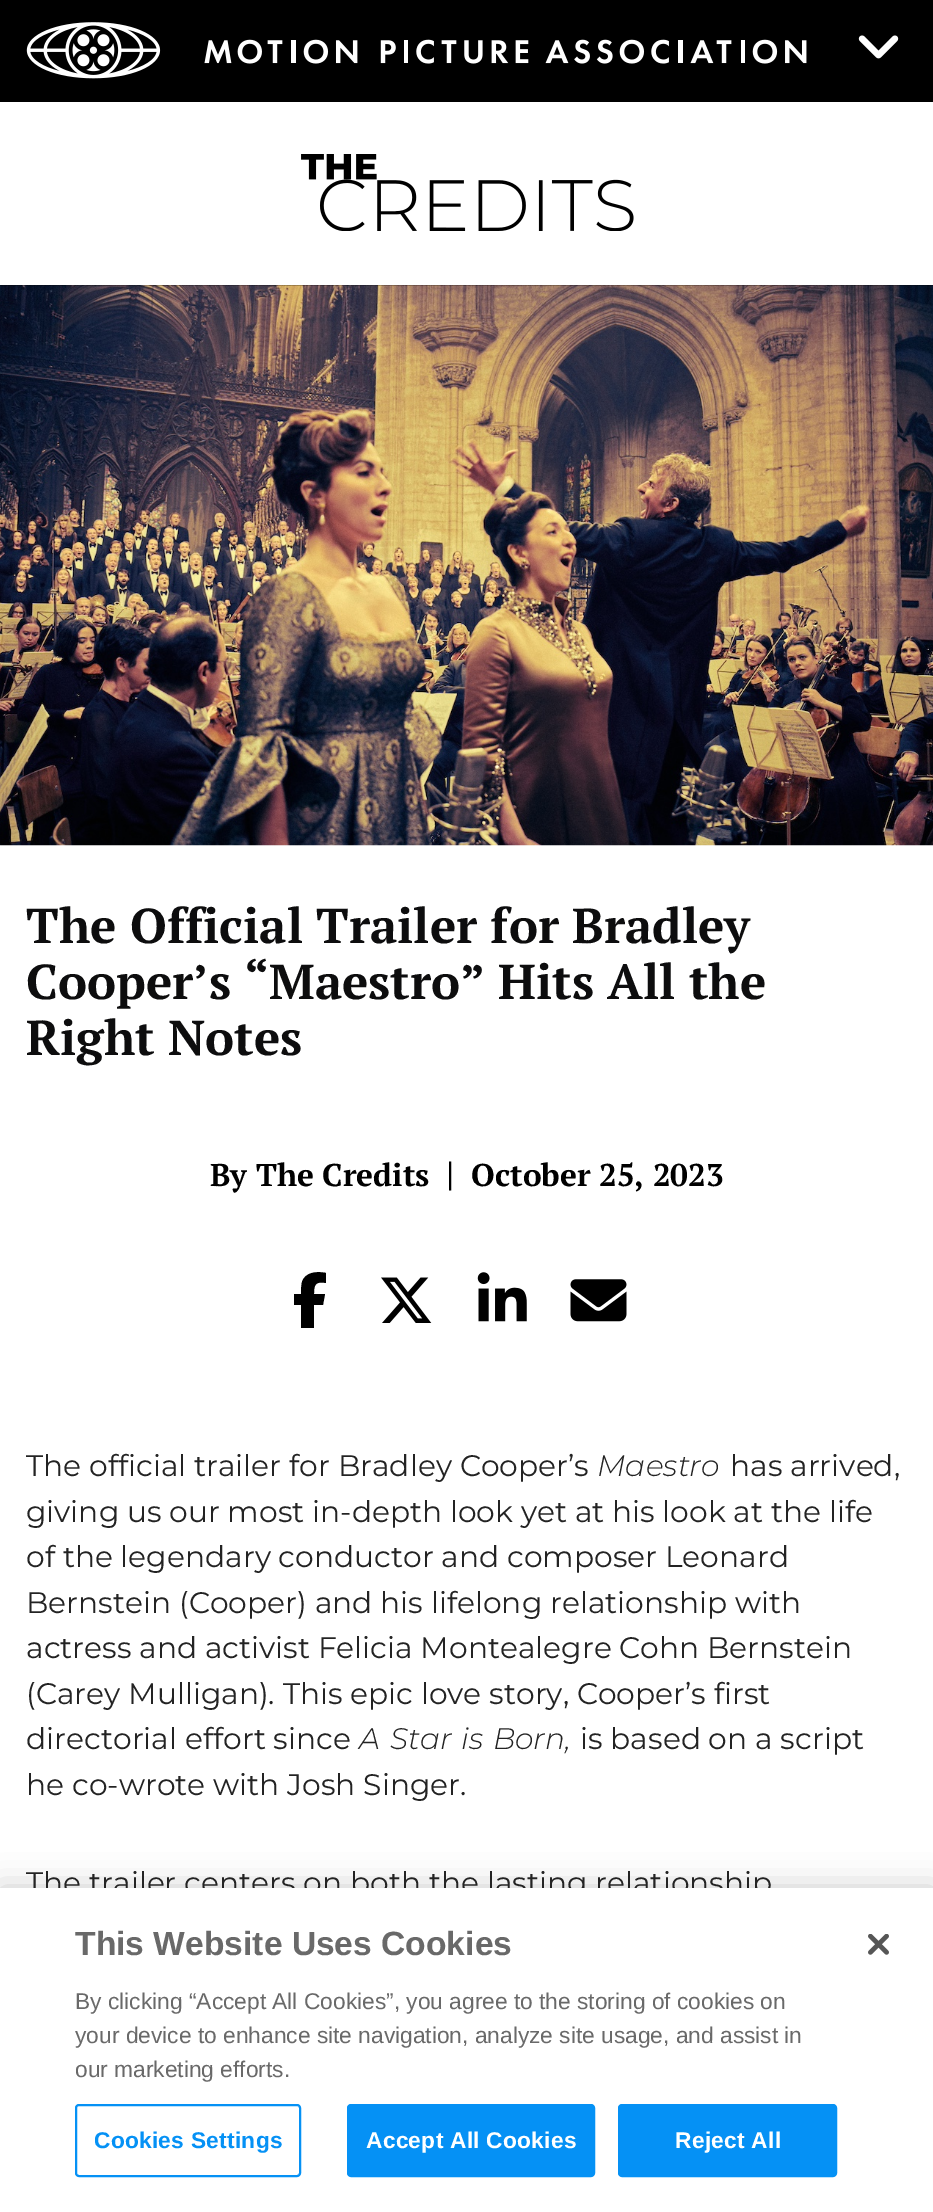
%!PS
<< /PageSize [933 2212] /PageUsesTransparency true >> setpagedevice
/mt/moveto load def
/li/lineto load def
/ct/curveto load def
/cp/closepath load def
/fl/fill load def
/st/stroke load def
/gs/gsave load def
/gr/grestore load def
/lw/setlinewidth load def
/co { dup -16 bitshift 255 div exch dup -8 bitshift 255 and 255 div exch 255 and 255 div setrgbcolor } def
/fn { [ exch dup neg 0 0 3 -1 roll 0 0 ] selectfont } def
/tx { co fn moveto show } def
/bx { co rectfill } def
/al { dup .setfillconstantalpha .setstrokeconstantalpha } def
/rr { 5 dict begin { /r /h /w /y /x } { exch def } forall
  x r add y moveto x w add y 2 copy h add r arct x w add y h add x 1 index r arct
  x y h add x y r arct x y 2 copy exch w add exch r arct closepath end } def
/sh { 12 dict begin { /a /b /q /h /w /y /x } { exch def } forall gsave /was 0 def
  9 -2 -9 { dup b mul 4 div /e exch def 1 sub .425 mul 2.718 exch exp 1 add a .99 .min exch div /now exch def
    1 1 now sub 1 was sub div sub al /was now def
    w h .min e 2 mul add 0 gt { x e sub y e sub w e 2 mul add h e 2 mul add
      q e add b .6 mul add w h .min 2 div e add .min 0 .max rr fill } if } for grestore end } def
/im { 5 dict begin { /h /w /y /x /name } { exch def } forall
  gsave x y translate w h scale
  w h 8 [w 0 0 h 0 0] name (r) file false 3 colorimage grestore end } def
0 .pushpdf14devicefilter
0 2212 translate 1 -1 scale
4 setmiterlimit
0 0 933 2212 16#FFFFFF bx
0 0 933 102 16#000000 bx
(media/1.raw) 26 22 781 57 im
(media/2.raw) 858 35 41 24 im
(media/3.raw) 301 154 333 77 im
(media/4.raw) 0 285 933 561 im
301 1305 mt 301 1328 li 301 1305 li 301 1328 li 314 1328 li 314 1305 li 323 1305 li 325 1294 li 314 1294 li 314 1285 315 1281 326 1283 ct 326 1273 li 317 1271 305 1272 302 1282 ct 301 1286 301 1290 301 1294 ct 294 1294 li 294 1305 li cp fl
(media/5.raw) 381 1277 51 46 im
(media/6.raw) 477 1272 50 50 im
(media/7.raw) 570 1279 57 43 im
0 1888 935 324 0 16 .2 sh
(The Official Trailer for Bradley) 26 943 /PTSerif-Bold 49 16#0D0D0E tx
(Cooper’s “Maestro” Hits All the) 26 999 /PTSerif-Bold 49 16#0D0D0E tx
(Right Notes) 26 1055 /PTSerif-Bold 49 16#0D0D0E tx
(By The Credits) 210 1186 /PTSerif-Bold 31.5 16#000000 tx
(|) 446 1186 /PTSerif-Bold 35 16#000000 tx
(October 25, 2023) 471 1186 /PTSerif-Bold 31.5 16#000000 tx
(The official trailer for Bradley Cooper’s) 26 1476 /Montserrat-Regular 29.75 16#232323 tx
(Maestro) 597 1476 /Montserrat-LightItalic 29.75 16#232323 tx
(has arrived,) 730 1476 /Montserrat-Regular 29.75 16#232323 tx
(giving us our most in-depth look yet at his look at the life) 26 1522 /Montserrat-Regular 29.75 16#232323 tx
(of the legendary conductor and composer Leonard) 26 1567 /Montserrat-Regular 29.75 16#232323 tx
(Bernstein \(Cooper\) and his lifelong relationship with) 26 1613 /Montserrat-Regular 29.75 16#232323 tx
(actress and activist Felicia Montealegre Cohn Bernstein) 26 1658 /Montserrat-Regular 29.75 16#232323 tx
(\(Carey Mulligan\). This epic love story, Cooper’s first) 26 1704 /Montserrat-Regular 29.75 16#232323 tx
(directorial effort since) 26 1749 /Montserrat-Regular 29.75 16#232323 tx
/Montserrat-LightItalic 29.75 fn
359 1749 mt 2 0 32 (A Star is Born,) widthshow
(is based on a script) 580 1749 /Montserrat-Regular 29.75 16#232323 tx
(he co-wrote with Josh Singer.) 26 1795 /Montserrat-Regular 29.75 16#232323 tx
(The trailer centers on both the lasting relationship) 26 1893 /Montserrat-Regular 29.75 16#232323 tx
0 1888 933 324 16#FFFFFF bx
(This Website Uses Cookies) 75 1955 /LiberationSans-Bold 33.6 16#696969 tx
(By clicking “Accept All Cookies”, you agree to the storing of cookies on) 75 2009 /LiberationSans-Regular 22.75 16#696969 tx
(your device to enhance site navigation, analyze site usage, and assist in) 75 2043 /LiberationSans-Regular 22.75 16#696969 tx
(our marketing efforts.) 75 2077 /LiberationSans-Regular 22.75 16#696969 tx
16#0591F5 co
2 lw
76 2105 224 71 3 rr st
/LiberationSans-Bold 22.75 fn
94 2148 mt .25 0 (Cookies Settings) ashow
348 2105 246 71 3 rr gs fl gr
st
16#FFFFFF co
366 2148 mt .25 0 (Accept All Cookies) ashow
16#0591F5 co
619 2105 217 71 3 rr gs fl gr
st
16#FFFFFF co
675 2148 mt .25 0 (Reject All) ashow
(media/8.raw) 868 1934 21 21 im
.poppdf14devicefilter showpage
